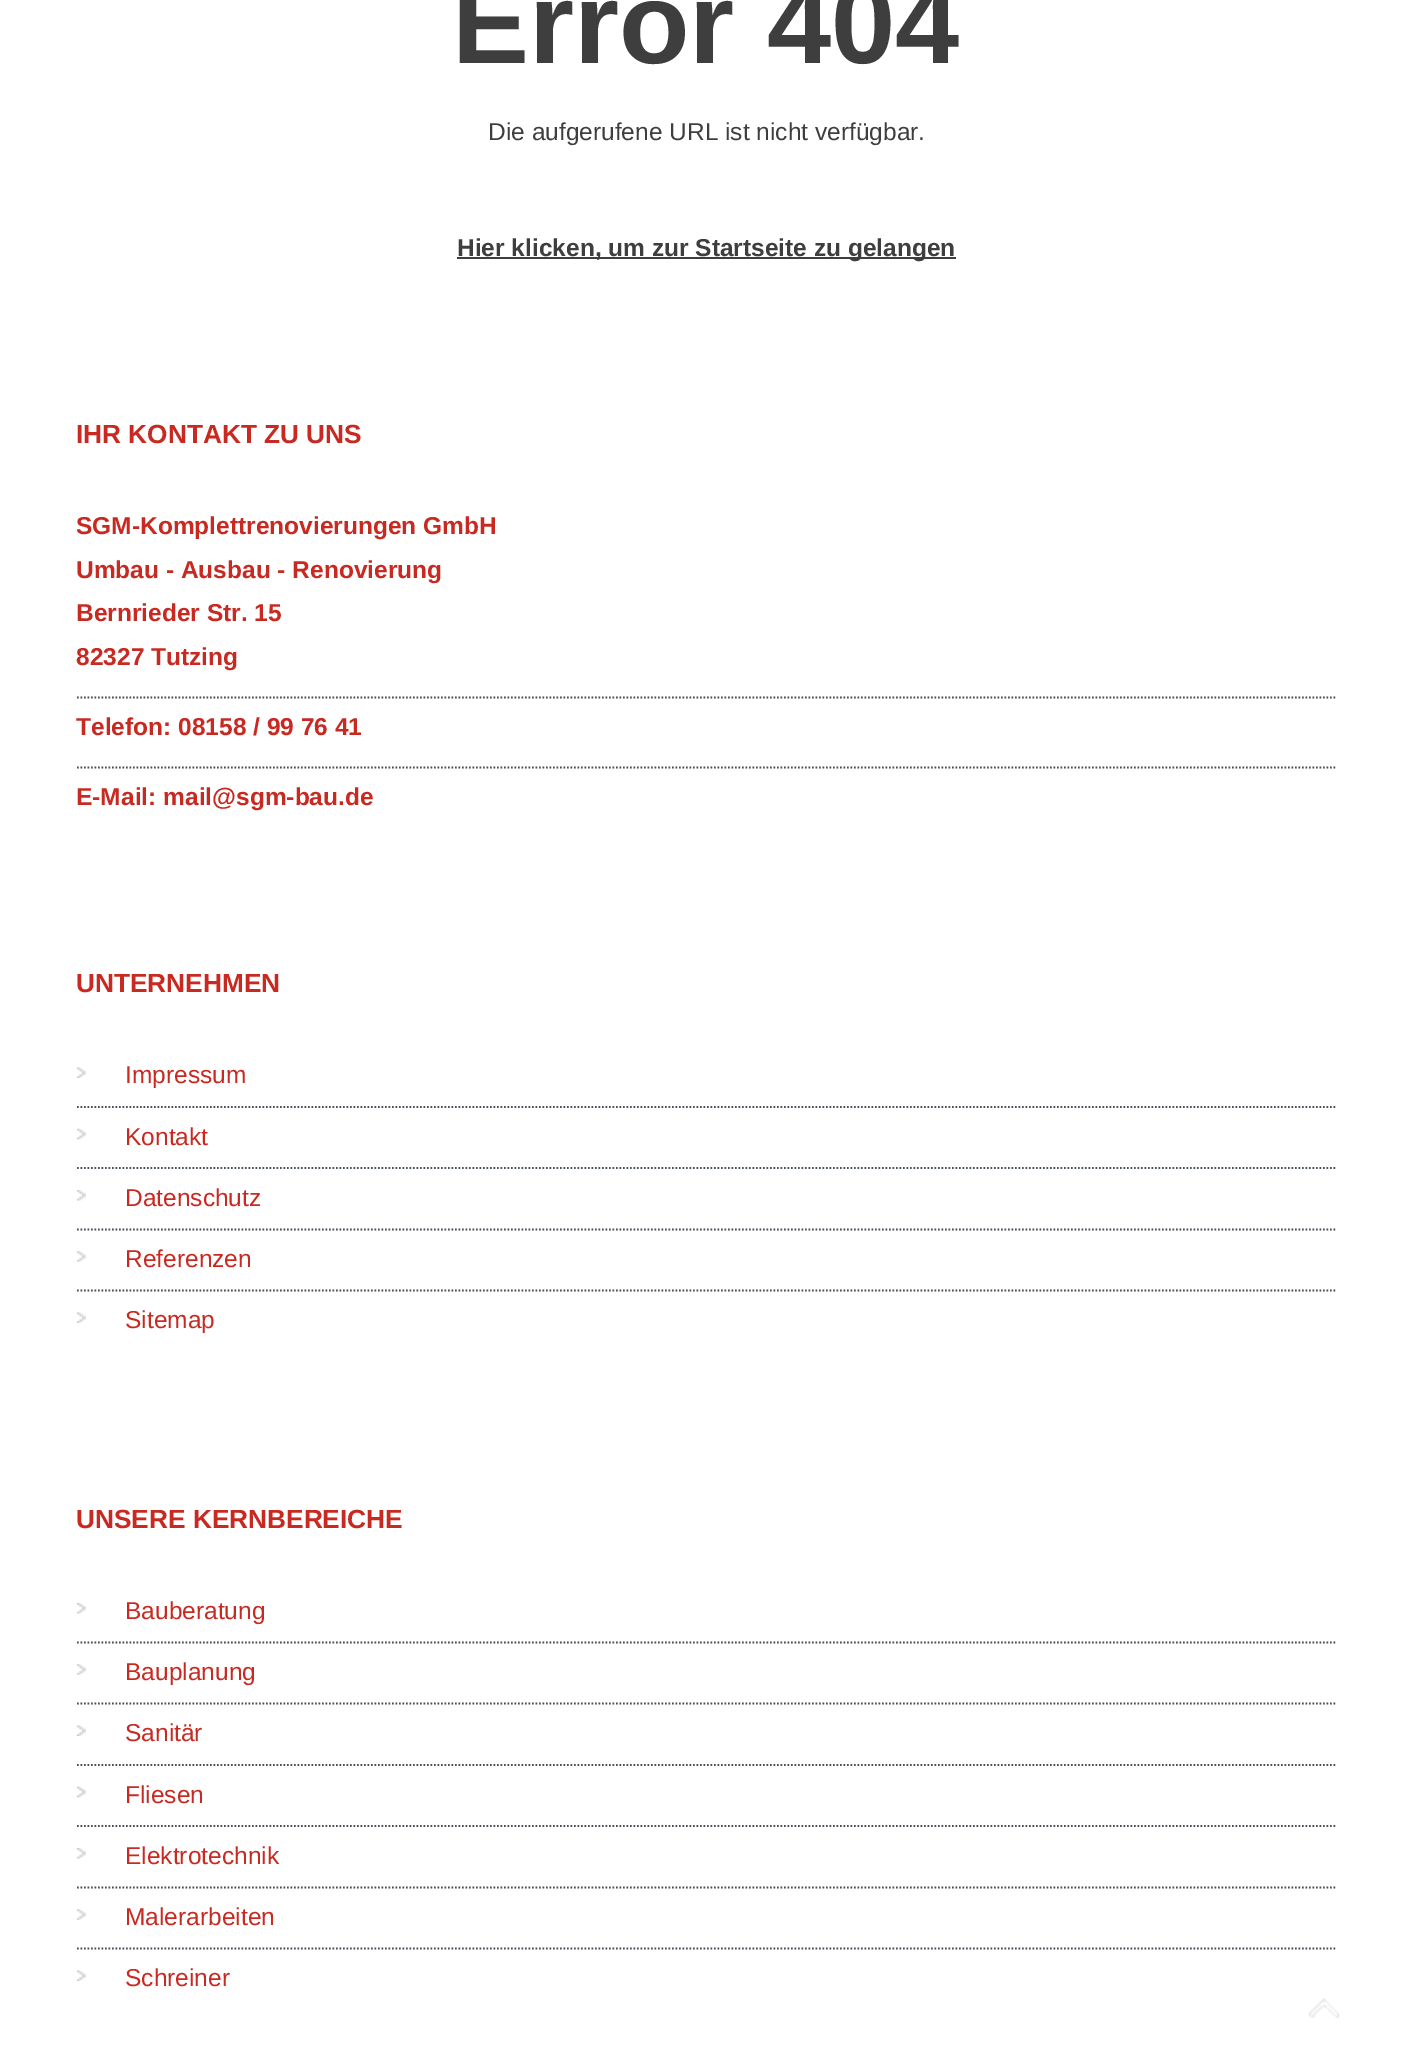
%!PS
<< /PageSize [1411 2067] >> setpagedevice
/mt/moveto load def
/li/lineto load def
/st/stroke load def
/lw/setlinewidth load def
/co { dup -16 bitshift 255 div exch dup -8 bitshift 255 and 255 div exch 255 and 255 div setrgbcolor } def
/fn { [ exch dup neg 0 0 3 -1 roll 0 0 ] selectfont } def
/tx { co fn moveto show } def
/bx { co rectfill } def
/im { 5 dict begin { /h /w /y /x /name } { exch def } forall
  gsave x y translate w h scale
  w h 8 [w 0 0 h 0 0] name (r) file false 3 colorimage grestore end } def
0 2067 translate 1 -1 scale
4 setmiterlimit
0 0 1411 2067 16#FFFFFF bx
457 257 499 2 16#3E3E3E bx
16#485159 co
1.8 lw
[1.75 1.75] 0 setdash
77 697.5 mt 1337 697.5 li st
77 767.5 mt 1337 767.5 li st
(media/1.raw) 77 1067 9 11 im
77 1107 mt 1337 1107 li st
(media/2.raw) 77 1128 9 12 im
77 1168 mt 1337 1168 li st
(media/3.raw) 77 1190 9 11 im
77 1229.5 mt 1337 1229.5 li st
(media/4.raw) 77 1251 9 11 im
77 1290.5 mt 1337 1290.5 li st
(media/1.raw) 77 1312 9 11 im
(media/3.raw) 77 1603 9 11 im
77 1642.5 mt 1337 1642.5 li st
(media/4.raw) 77 1664 9 11 im
77 1703.5 mt 1337 1703.5 li st
(media/1.raw) 77 1725 9 11 im
77 1765 mt 1337 1765 li st
(media/2.raw) 77 1786 9 12 im
77 1826 mt 1337 1826 li st
(media/3.raw) 77 1848 9 11 im
77 1887.5 mt 1337 1887.5 li st
(media/4.raw) 77 1909 9 11 im
77 1948.5 mt 1337 1948.5 li st
(media/1.raw) 77 1970 9 11 im
(media/5.raw) 1308 1998 32 20 im
(Error 404) 452 63 /LiberationSans-Bold 115.5 16#3E3E3E tx
(Die aufgerufene URL ist nicht verfügbar.) 488 140 /LiberationSans-Regular 24.5 16#3E3E3E tx
(Hier klicken, um zur Startseite zu gelangen) 457 256 /LiberationSans-Bold 24.5 16#3E3E3E tx
(IHR KONTAKT ZU UNS) 76 443 /LiberationSans-Bold 26.25 16#C82921 tx
(SGM-Komplettrenovierungen GmbH) 76 534 /LiberationSans-Bold 24.5 16#C82921 tx
(Umbau - Ausbau - Renovierung) 76 578 /LiberationSans-Bold 24.5 16#C82921 tx
(Bernrieder Str. 15) 76 621 /LiberationSans-Bold 24.5 16#C82921 tx
(82327 Tutzing) 76 665 /LiberationSans-Bold 24.5 16#C82921 tx
(Telefon: 08158 / 99 76 41) 76 735 /LiberationSans-Bold 24.5 16#C82921 tx
(E-Mail: mail@sgm-bau.de) 76 805 /LiberationSans-Bold 24.5 16#C82921 tx
(UNTERNEHMEN) 76 992 /LiberationSans-Bold 26.25 16#C82921 tx
(Impressum) 125 1083 /LiberationSans-Regular 24.5 16#C82921 tx
(Kontakt) 125 1145 /LiberationSans-Regular 24.5 16#C82921 tx
(Datenschutz) 125 1206 /LiberationSans-Regular 24.5 16#C82921 tx
(Referenzen) 125 1267 /LiberationSans-Regular 24.5 16#C82921 tx
(Sitemap) 125 1328 /LiberationSans-Regular 24.5 16#C82921 tx
(UNSERE KERNBEREICHE) 76 1528 /LiberationSans-Bold 26.25 16#C82921 tx
(Bauberatung) 125 1619 /LiberationSans-Regular 24.5 16#C82921 tx
(Bauplanung) 125 1680 /LiberationSans-Regular 24.5 16#C82921 tx
(Sanitär) 125 1741 /LiberationSans-Regular 24.5 16#C82921 tx
(Fliesen) 125 1803 /LiberationSans-Regular 24.5 16#C82921 tx
(Elektrotechnik) 125 1864 /LiberationSans-Regular 24.5 16#C82921 tx
(Malerarbeiten) 125 1925 /LiberationSans-Regular 24.5 16#C82921 tx
(Schreiner) 125 1986 /LiberationSans-Regular 24.5 16#C82921 tx
showpage
